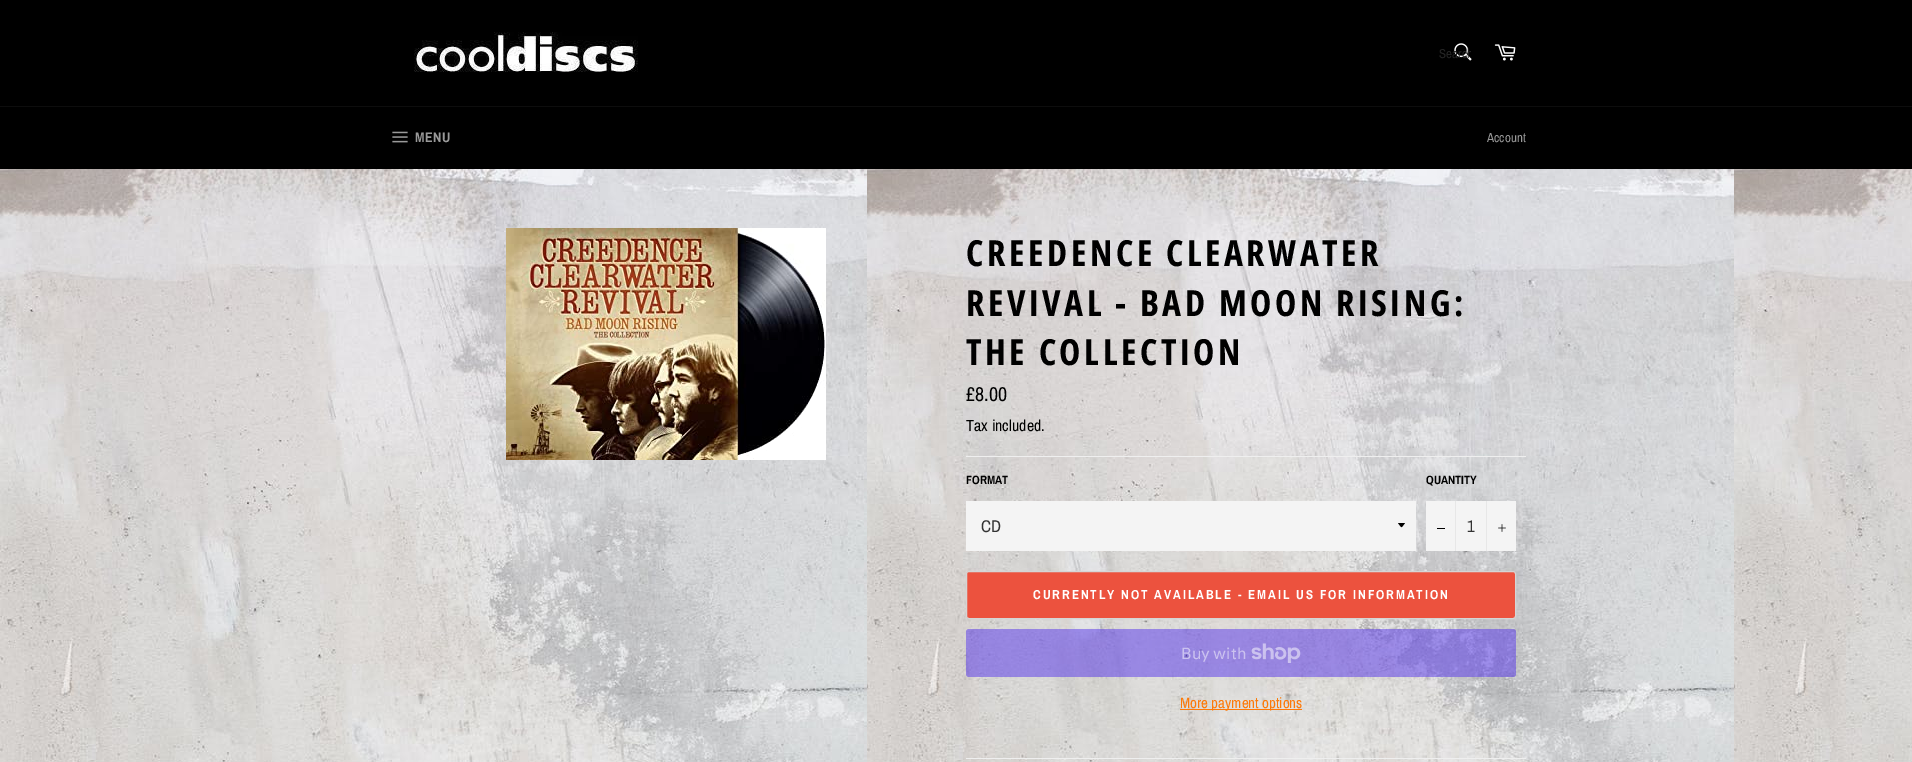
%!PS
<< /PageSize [1912 762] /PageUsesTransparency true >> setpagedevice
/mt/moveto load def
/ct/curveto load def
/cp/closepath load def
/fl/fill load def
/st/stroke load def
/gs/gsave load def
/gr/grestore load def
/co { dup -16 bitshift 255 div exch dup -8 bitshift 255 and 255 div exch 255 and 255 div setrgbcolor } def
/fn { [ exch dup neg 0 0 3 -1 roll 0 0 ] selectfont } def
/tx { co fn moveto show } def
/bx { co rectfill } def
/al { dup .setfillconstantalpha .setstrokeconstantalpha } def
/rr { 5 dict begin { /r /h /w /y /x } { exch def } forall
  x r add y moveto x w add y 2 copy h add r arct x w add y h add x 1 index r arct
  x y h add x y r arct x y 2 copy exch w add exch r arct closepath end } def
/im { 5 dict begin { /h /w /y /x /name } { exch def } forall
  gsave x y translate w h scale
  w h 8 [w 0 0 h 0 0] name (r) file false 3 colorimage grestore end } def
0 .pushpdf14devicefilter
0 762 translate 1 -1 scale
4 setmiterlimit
0 0 1912 762 16#000000 bx
(media/1.raw) 414 32 224 40 im
(media/2.raw) 1454 43 18 18 im
(media/3.raw) 1494 44 22 17 im
0 106 1912 1 16#0D0D0D bx
(media/4.raw) 392 131 16 12 im
(media/5.raw) 0 169 1912 593 im
(media/6.raw) 506 228 320 232 im
966 456 560 1 16#EFEFEF bx
966 501 450 50 16#F4F4F4 bx
16#000000 co
1398 523 mt 1402.5 528.5 1400.5 528.5 1405 523 ct cp fl
1426 501 90 50 16#F4F4F4 bx
1455 501 1 50 16#E7E7E7 bx
1437 528 8 1 16#000000 bx
1486 501 1 50 16#E7E7E7 bx
(media/7.raw) 1498 524 8 8 im
16#EC523E co
966.5 571.5 549 47 2.5 rr gs fl gr
16#D5D5D5 co
st
0.5 al
16#5433EB co
966 629 550 48 3 rr fl
1 al
(media/8.raw) 1251 643 50 20 im
1180 709 122 1 16#FD7908 bx
966 758 560 1 16#EFEFEF bx
gs
1439 45 32 17 rectclip
(Search) 1439 58 /ArchivoNarrow-Regular 13 16#242424 tx
gr
/ArchivoNarrow-Bold 14 fn
16#999999 co
415 142 mt .5 0 (MENU) ashow
(Account) 1487 142 /ArchivoNarrow-Regular 13 16#999999 tx
/OpenSansCondensed-Bold 36 fn
16#000000 co
966 266 mt 3.6 0 (CREEDENCE CLEARWATER) ashow
966 316 mt 3.6 0 (REVIVAL - BAD MOON RISING:) ashow
966 365 mt 3.6 0 (THE COLLECTION) ashow
(£8.00) 966 401 /ArchivoNarrow-Regular 20 16#000000 tx
(Tax included.) 966 431 /ArchivoNarrow-Regular 16 16#000000 tx
(FORMAT) 966 484 /ArchivoNarrow-Bold 12 16#000000 tx
(CD) 981 532 /ArchivoNarrow-Regular 17 16#333333 tx
(QUANTITY) 1426 484 /ArchivoNarrow-Bold 12 16#000000 tx
(1) 1467 532 /ArchivoNarrow-Regular 17 16#333333 tx
/ArchivoNarrow-Bold 13 fn
16#FFFFFF co
1033 599 mt 1.95 0 (CURRENTLY NOT AVAILABLE - EMAIL US FOR INFORMATION) ashow
(Buy with) 1181 659 /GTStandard-Regular 16 16#CBC2EF tx
(More payment options) 1180 708 /ArchivoNarrow-Regular 15 16#FD7908 tx
.poppdf14devicefilter showpage
